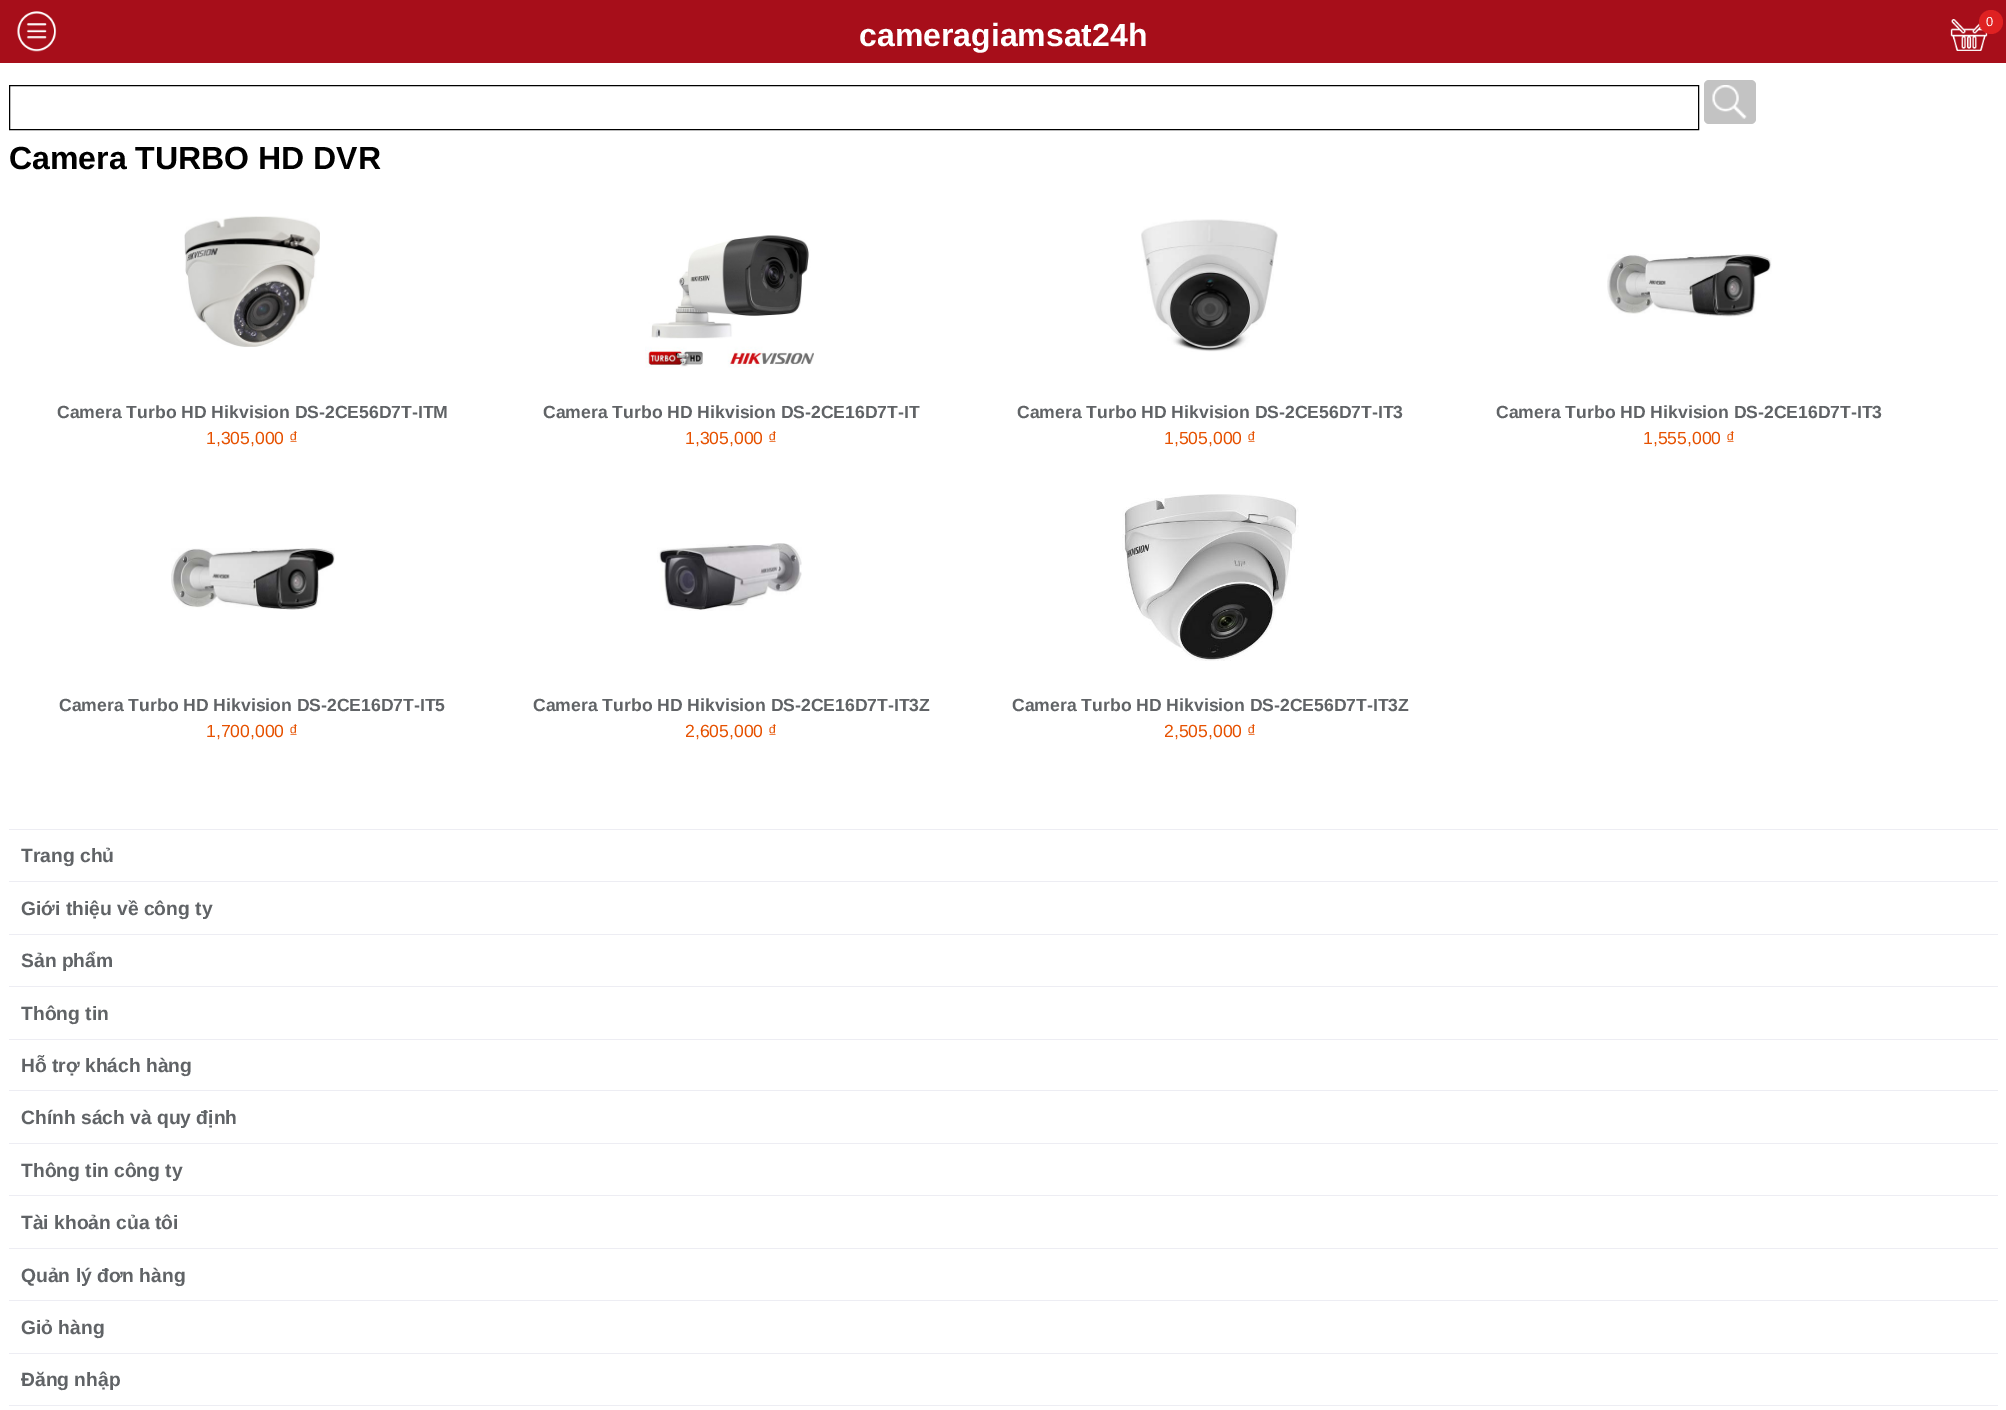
%!PS
<< /PageSize [2006 1410] >> setpagedevice
/fl/fill load def
/co { dup -16 bitshift 255 div exch dup -8 bitshift 255 and 255 div exch 255 and 255 div setrgbcolor } def
/fn { [ exch dup neg 0 0 3 -1 roll 0 0 ] selectfont } def
/tx { co fn moveto show } def
/bx { co rectfill } def
/ci { newpath 0 360 arc closepath } def
/rr { 5 dict begin { /r /h /w /y /x } { exch def } forall
  x r add y moveto x w add y 2 copy h add r arct x w add y h add x 1 index r arct
  x y h add x y r arct x y 2 copy exch w add exch r arct closepath end } def
/im { 5 dict begin { /h /w /y /x /name } { exch def } forall
  gsave x y translate w h scale
  w h 8 [w 0 0 h 0 0] name (r) file false 3 colorimage grestore end } def
0 1410 translate 1 -1 scale
4 setmiterlimit
0 0 2006 1410 16#A70E1A bx
(media/1.raw) 17 11 40 41 im
(media/2.raw) 1950 19 38 32 im
16#DF2122 co
1991 22 12 ci fl
0 63 2006 1347 16#FFFFFF bx
16#000000 co
9.5 85.5 1689 44 rectstroke
16#C3C3C3 co
1704 80 52 44 5 rr fl
(media/3.raw) 1712 85 35 34 im
(media/4.raw) 184 216 136 131 im
(media/5.raw) 645 235 169 133 im
(media/6.raw) 1141 219 137 133 im
(media/7.raw) 1607 254 165 63 im
(media/8.raw) 171 548 164 62 im
(media/9.raw) 657 543 145 68 im
(media/10.raw) 1122 494 177 167 im
9 829 1989 1 16#EDEDF3 bx
9 881 1989 1 16#EDEDF3 bx
9 934 1989 1 16#EDEDF3 bx
9 986 1989 1 16#EDEDF3 bx
9 1039 1989 1 16#EDEDF3 bx
9 1090 1989 1 16#EDEDF3 bx
9 1143 1989 1 16#EDEDF3 bx
9 1195 1989 1 16#EDEDF3 bx
9 1248 1989 1 16#EDEDF3 bx
9 1300 1989 1 16#EDEDF3 bx
9 1353 1989 1 16#EDEDF3 bx
9 1405 1989 1 16#EDEDF3 bx
(cameragiamsat24h) 859 46 /LiberationSans-Bold 32 16#FFFFFF tx
(0) 1986 26 /LiberationSans-Regular 13 16#FFFFFF tx
(Camera TURBO HD DVR) 9 169 /LiberationSans-Bold 32 16#000000 tx
(Camera Turbo HD Hikvision DS-2CE56D7T-ITM) 57 418 /LiberationSans-Bold 17.6 16#606366 tx
(1,305,000 ₫) 206 444 /LiberationSans-Regular 17.6 16#E65100 tx
(Camera Turbo HD Hikvision DS-2CE16D7T-IT) 543 418 /LiberationSans-Bold 17.6 16#606366 tx
(1,305,000 ₫) 685 444 /LiberationSans-Regular 17.6 16#E65100 tx
(Camera Turbo HD Hikvision DS-2CE56D7T-IT3) 1017 418 /LiberationSans-Bold 17.6 16#606366 tx
(1,505,000 ₫) 1164 444 /LiberationSans-Regular 17.6 16#E65100 tx
(Camera Turbo HD Hikvision DS-2CE16D7T-IT3) 1496 418 /LiberationSans-Bold 17.6 16#606366 tx
(1,555,000 ₫) 1643 444 /LiberationSans-Regular 17.6 16#E65100 tx
(Camera Turbo HD Hikvision DS-2CE16D7T-IT5) 59 711 /LiberationSans-Bold 17.6 16#606366 tx
(1,700,000 ₫) 206 737 /LiberationSans-Regular 17.6 16#E65100 tx
(Camera Turbo HD Hikvision DS-2CE16D7T-IT3Z) 533 711 /LiberationSans-Bold 17.6 16#606366 tx
(2,605,000 ₫) 685 737 /LiberationSans-Regular 17.6 16#E65100 tx
(Camera Turbo HD Hikvision DS-2CE56D7T-IT3Z) 1012 711 /LiberationSans-Bold 17.6 16#606366 tx
(2,505,000 ₫) 1164 737 /LiberationSans-Regular 17.6 16#E65100 tx
(Trang chủ) 21 862 /LiberationSans-Bold 19.25 16#606366 tx
(Giới thiệu về công ty) 21 915 /LiberationSans-Bold 19.25 16#606366 tx
(Sản phẩm) 21 967 /LiberationSans-Bold 19.25 16#606366 tx
(Thông tin) 21 1020 /LiberationSans-Bold 19.25 16#606366 tx
(Hỗ trợ khách hàng) 21 1072 /LiberationSans-Bold 19.25 16#606366 tx
(Chính sách và quy định) 21 1124 /LiberationSans-Bold 19.25 16#606366 tx
(Thông tin công ty) 21 1177 /LiberationSans-Bold 19.25 16#606366 tx
(Tài khoản của tôi) 21 1229 /LiberationSans-Bold 19.25 16#606366 tx
(Quản lý đơn hàng) 21 1282 /LiberationSans-Bold 19.25 16#606366 tx
(Giỏ hàng) 21 1334 /LiberationSans-Bold 19.25 16#606366 tx
(Đăng nhập) 21 1386 /LiberationSans-Bold 19.25 16#606366 tx
showpage
